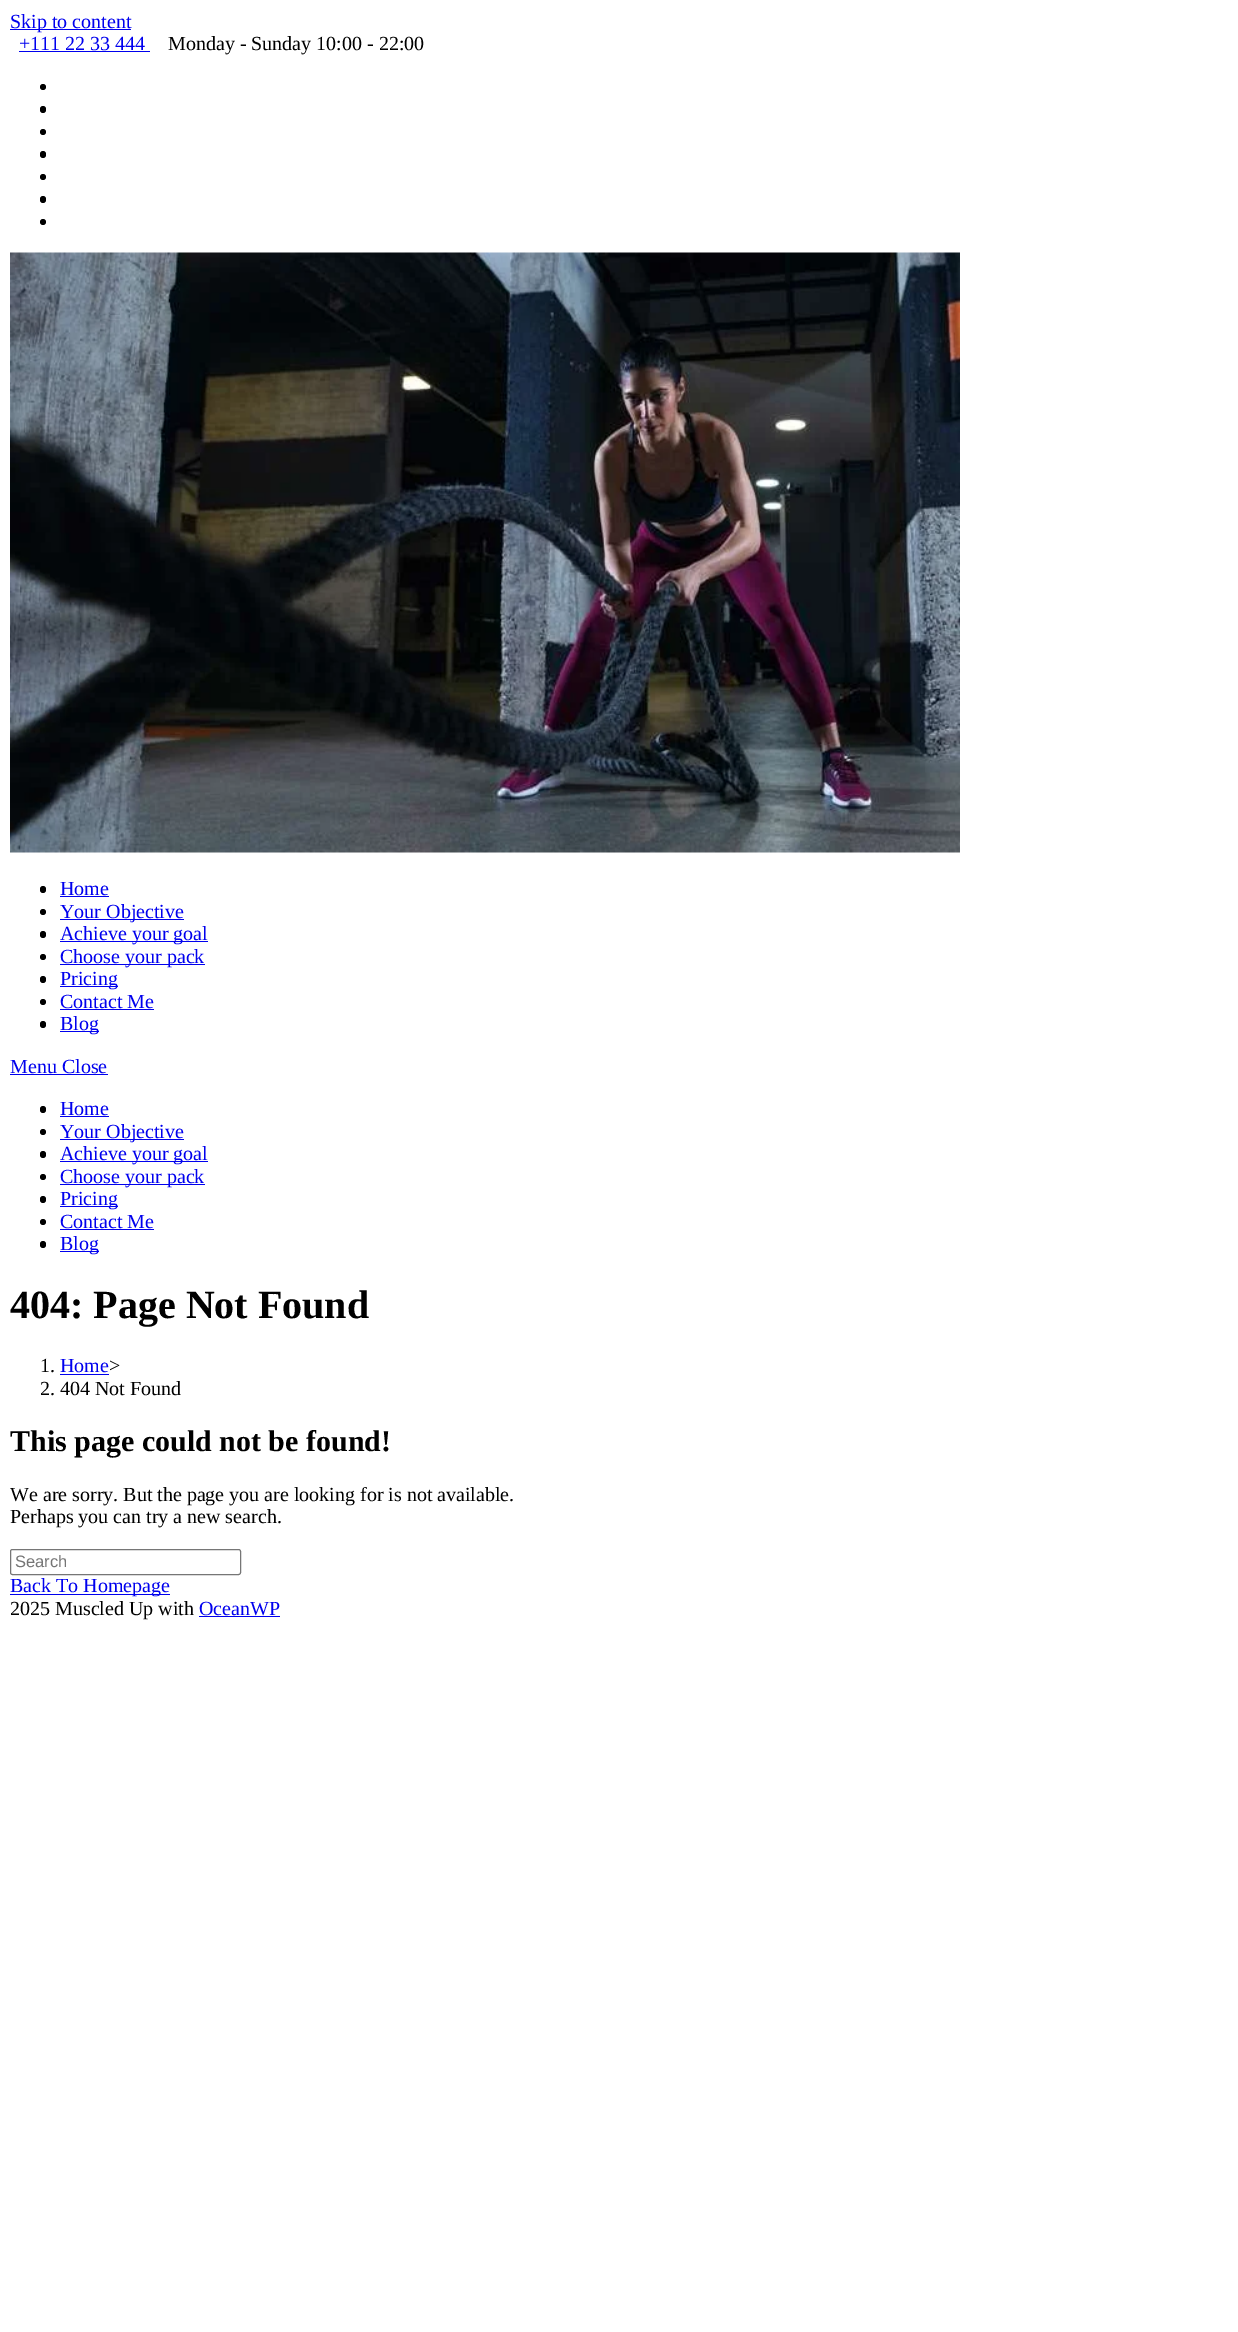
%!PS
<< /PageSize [1238 2332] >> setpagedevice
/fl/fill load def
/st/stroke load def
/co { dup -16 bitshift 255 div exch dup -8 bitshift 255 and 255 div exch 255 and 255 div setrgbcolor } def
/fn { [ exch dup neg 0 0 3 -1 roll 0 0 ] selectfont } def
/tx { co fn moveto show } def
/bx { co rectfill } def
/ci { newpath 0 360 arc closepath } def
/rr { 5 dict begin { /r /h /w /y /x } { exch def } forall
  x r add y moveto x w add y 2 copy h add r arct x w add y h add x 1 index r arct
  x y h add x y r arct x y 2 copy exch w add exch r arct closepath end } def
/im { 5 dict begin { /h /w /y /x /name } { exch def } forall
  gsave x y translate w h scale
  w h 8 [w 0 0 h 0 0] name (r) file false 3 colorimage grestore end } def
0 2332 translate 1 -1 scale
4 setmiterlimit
0 0 1238 2332 16#FFFFFF bx
10 29 121 1 16#0000EE bx
19 51 131 1 16#0000EE bx
16#000000 co
43 87 3 ci fl
40 106 6 7 3 rr fl
43 132 3 ci fl
40 151 6 7 3 rr fl
43 177 3 ci fl
40 196 6 7 3 rr fl
43 222 3 ci fl
(media/1.raw) 10 252 950 601 im
40 886 6 7 3 rr fl
60 896 49 1 16#0000EE bx
16#000000 co
43 912 3 ci fl
60 919 124 1 16#0000EE bx
16#000000 co
40 931 6 7 3 rr fl
60 941 148 1 16#0000EE bx
16#000000 co
43 957 3 ci fl
60 964 145 1 16#0000EE bx
16#000000 co
40 976 6 7 3 rr fl
60 986 58 1 16#0000EE bx
16#000000 co
43 1002 3 ci fl
60 1009 94 1 16#0000EE bx
16#000000 co
40 1021 6 7 3 rr fl
60 1031 39 1 16#0000EE bx
10 1074 98 1 16#0000EE bx
16#000000 co
40 1106 6 7 3 rr fl
60 1116 49 1 16#0000EE bx
16#000000 co
43 1132 3 ci fl
60 1139 124 1 16#0000EE bx
16#000000 co
40 1151 6 7 3 rr fl
60 1161 148 1 16#0000EE bx
16#000000 co
43 1177 3 ci fl
60 1184 145 1 16#0000EE bx
16#000000 co
40 1196 6 7 3 rr fl
60 1206 58 1 16#0000EE bx
16#000000 co
43 1222 3 ci fl
60 1229 94 1 16#0000EE bx
16#000000 co
40 1241 6 7 3 rr fl
60 1251 39 1 16#0000EE bx
60 1374 49 1 16#0000EE bx
16#767676 co
10.5 1549.5 230 25 2 rr st
10 1594 160 1 16#0000EE bx
199 1616 81 1 16#0000EE bx
(Skip to content) 10 28 /LiberationSerif-Regular 20 16#0000EE tx
(+111 22 33 444) 19 50 /LiberationSerif-Regular 20 16#0000EE tx
(Monday - Sunday 10:00 - 22:00) 168 50 /LiberationSerif-Regular 20 16#000000 tx
(Home) 60 895 /LiberationSerif-Regular 20 16#0000EE tx
(Your Objective) 60 918 /LiberationSerif-Regular 20 16#0000EE tx
(Achieve your goal) 60 940 /LiberationSerif-Regular 20 16#0000EE tx
(Choose your pack) 60 963 /LiberationSerif-Regular 20 16#0000EE tx
(Pricing) 60 985 /LiberationSerif-Regular 20 16#0000EE tx
(Contact Me) 60 1008 /LiberationSerif-Regular 20 16#0000EE tx
(Blog) 60 1030 /LiberationSerif-Regular 20 16#0000EE tx
(Menu Close) 10 1073 /LiberationSerif-Regular 20 16#0000EE tx
(Home) 60 1115 /LiberationSerif-Regular 20 16#0000EE tx
(Your Objective) 60 1138 /LiberationSerif-Regular 20 16#0000EE tx
(Achieve your goal) 60 1160 /LiberationSerif-Regular 20 16#0000EE tx
(Choose your pack) 60 1183 /LiberationSerif-Regular 20 16#0000EE tx
(Pricing) 60 1205 /LiberationSerif-Regular 20 16#0000EE tx
(Contact Me) 60 1228 /LiberationSerif-Regular 20 16#0000EE tx
(Blog) 60 1250 /LiberationSerif-Regular 20 16#0000EE tx
(404: Page Not Found) 10 1318 /LiberationSerif-Bold 40 16#000000 tx
(1.) 40 1372 /LiberationSerif-Regular 20 16#000000 tx
(Home) 60 1372 /LiberationSerif-Regular 20 16#0000EE tx
(>) 109 1372 /LiberationSerif-Regular 20 16#000000 tx
(2. 404 Not Found) 40 1395 /LiberationSerif-Regular 20 16#000000 tx
(This page could not be found!) 10 1451 /LiberationSerif-Bold 30 16#000000 tx
(We are sorry. But the page you are looking for is not available.) 10 1501 /LiberationSerif-Regular 20 16#000000 tx
(Perhaps you can try a new search.) 10 1523 /LiberationSerif-Regular 20 16#000000 tx
(Search) 15 1567 /LiberationSans-Regular 16.5 16#757575 tx
(Back To Homepage) 10 1592 /LiberationSerif-Regular 20 16#0000EE tx
(2025 Muscled Up with) 10 1615 /LiberationSerif-Regular 20 16#000000 tx
(OceanWP) 199 1615 /LiberationSerif-Regular 20 16#0000EE tx
showpage
